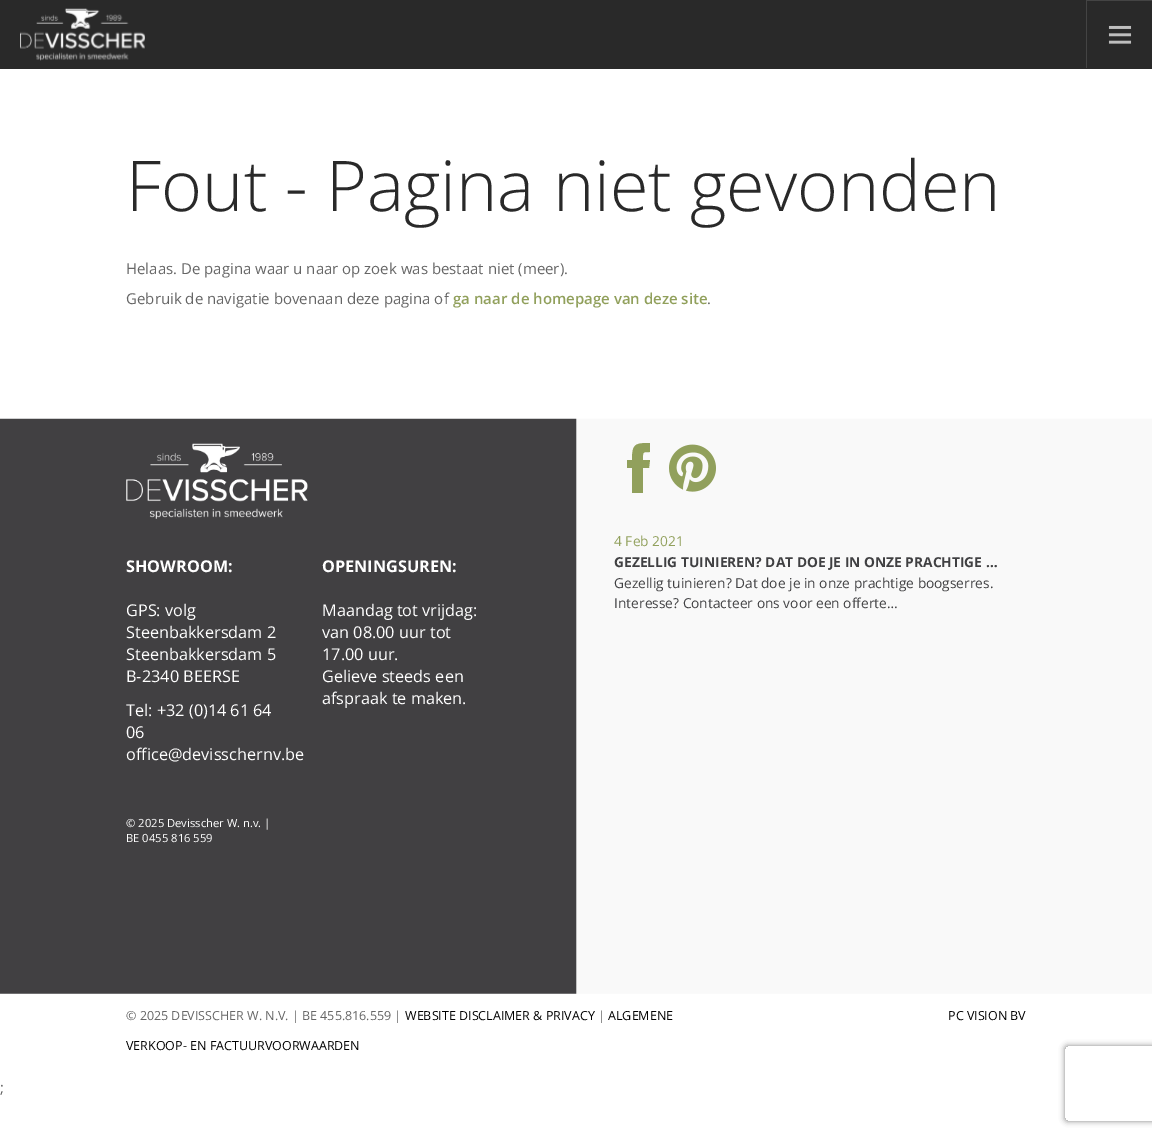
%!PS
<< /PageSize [1152 1138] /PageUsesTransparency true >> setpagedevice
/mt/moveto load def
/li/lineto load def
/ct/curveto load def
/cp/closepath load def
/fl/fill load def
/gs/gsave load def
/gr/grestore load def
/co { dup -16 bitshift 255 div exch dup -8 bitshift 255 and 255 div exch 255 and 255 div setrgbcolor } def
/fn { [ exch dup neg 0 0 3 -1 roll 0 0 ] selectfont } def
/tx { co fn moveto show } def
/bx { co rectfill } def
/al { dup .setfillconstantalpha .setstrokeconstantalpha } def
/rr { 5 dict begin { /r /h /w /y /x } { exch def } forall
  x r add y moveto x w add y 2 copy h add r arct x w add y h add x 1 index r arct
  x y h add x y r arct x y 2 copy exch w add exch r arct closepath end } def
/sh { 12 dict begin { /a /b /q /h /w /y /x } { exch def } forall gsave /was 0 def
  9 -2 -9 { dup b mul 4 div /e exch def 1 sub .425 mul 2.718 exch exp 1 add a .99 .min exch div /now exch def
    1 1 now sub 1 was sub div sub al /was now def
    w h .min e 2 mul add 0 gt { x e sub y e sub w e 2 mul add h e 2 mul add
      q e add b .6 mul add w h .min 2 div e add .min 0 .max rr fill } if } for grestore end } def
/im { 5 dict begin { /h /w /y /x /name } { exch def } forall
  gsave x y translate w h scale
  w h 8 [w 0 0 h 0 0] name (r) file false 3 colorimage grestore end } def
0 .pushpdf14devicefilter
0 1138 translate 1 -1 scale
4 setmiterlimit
0 0 1152 1138 16#FFFFFF bx
0 0 1152 69 16#292929 bx
(media/1.raw) 20 8 125 53 im
1086 0 66 1 16#444444 bx
1086 0 1 68 16#444444 bx
(media/2.raw) 1108 25 24 19 im
(media/3.raw) 0 418 1152 576 im
(media/4.raw) 126 443 182 76 im
16#91A05C co
650 460 mt 649 468 li 643 468 li 643 493 li 632 493 li 632 468 li 627 468 li 627 460 li 632 460 li 632 444 635 443 650 443 ct 650 452 li 642 452 643 452 643 460 ct cp fl
(media/5.raw) 669 444 47 48 im
gs
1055 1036 mt 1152 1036 li 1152 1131 li 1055 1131 li cp 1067.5 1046 mt 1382.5 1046 li 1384 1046 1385 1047 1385 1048.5 ct 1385 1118.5 li 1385 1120 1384 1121 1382.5 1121 ct 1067.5 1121 li 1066 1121 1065 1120 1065 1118.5 ct 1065 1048.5 li 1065 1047 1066 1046 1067.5 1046 ct cp eoclip newpath
16#808080 co
1065 1046 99 75 2.5 3 1 sh
gr
(Fout - Pagina niet gevonden) 126 211 /OpenSans-Light 70 16#292929 tx
(Helaas. De pagina waar u naar op zoek was bestaat niet \(meer\).) 126 274 /OpenSans-Regular 15 16#666666 tx
(Gebruik de navigatie bovenaan deze pagina of) 126 304 /OpenSans-Regular 15 16#666666 tx
(ga naar de homepage van deze site) 453 304 /OpenSans-SemiBold 15 16#91A05C tx
(.) 707 304 /OpenSans-Regular 15 16#666666 tx
(SHOWROOM:) 126 572 /OpenSans-Bold 16.25 16#FFFFFF tx
(GPS: volg) 126 616 /OpenSans-Regular 16.25 16#FFFFFF tx
(Steenbakkersdam 2) 126 638 /OpenSans-Regular 16.25 16#FFFFFF tx
(Steenbakkersdam 5) 126 660 /OpenSans-Regular 16.25 16#FFFFFF tx
(B-2340 BEERSE) 126 682 /OpenSans-Regular 16.25 16#FFFFFF tx
(Tel: +32 \(0\)14 61 64) 126 716 /OpenSans-Regular 16.25 16#FFFFFF tx
(06) 126 738 /OpenSans-Regular 16.25 16#FFFFFF tx
(office@devisschernv.be) 126 760 /OpenSans-Regular 16.25 16#FFFFFF tx
(© 2025 Devisscher W. n.v. |) 126 827 /OpenSans-Regular 11.25 16#FFFFFF tx
(BE 0455 816 559) 126 842 /OpenSans-Regular 11.25 16#FFFFFF tx
(OPENINGSUREN:) 322 572 /OpenSans-Bold 16.25 16#FFFFFF tx
(Maandag tot vrijdag:) 322 616 /OpenSans-Regular 16.25 16#FFFFFF tx
(van 08.00 uur tot) 322 638 /OpenSans-Regular 16.25 16#FFFFFF tx
(17.00 uur.) 322 660 /OpenSans-Regular 16.25 16#FFFFFF tx
(Gelieve steeds een) 322 682 /OpenSans-Regular 16.25 16#FFFFFF tx
(afspraak te maken.) 322 704 /OpenSans-Regular 16.25 16#FFFFFF tx
(4 Feb 2021) 614 546 /OpenSans-Regular 13.75 16#91A05C tx
(GEZELLIG TUINIEREN? DAT DOE JE IN ONZE PRACHTIGE …) 614 567 /OpenSans-Bold 13.75 16#404042 tx
(Gezellig tuinieren? Dat doe je in onze prachtige boogserres.) 614 588 /OpenSans-Regular 13.75 16#404042 tx
(Interesse? Contacteer ons voor een offerte…) 614 608 /OpenSans-Regular 13.75 16#404042 tx
(© 2025 DEVISSCHER W. N.V. | BE 455.816.559 |) 126 1020 /OpenSans-Regular 12.5 16#666666 tx
(WEBSITE DISCLAIMER & PRIVACY) 405 1020 /OpenSans-Regular 12.5 16#000000 tx
(|) 598 1020 /OpenSans-Regular 12.5 16#666666 tx
(ALGEMENE) 608 1020 /OpenSans-Regular 12.5 16#000000 tx
(VERKOOP- EN FACTUURVOORWAARDEN) 126 1050 /OpenSans-Regular 12.5 16#000000 tx
(PC VISION BV) 948 1020 /OpenSans-Regular 12.5 16#000000 tx
(;) 0 1093 /OpenSans-Regular 15 16#666666 tx
.poppdf14devicefilter showpage
